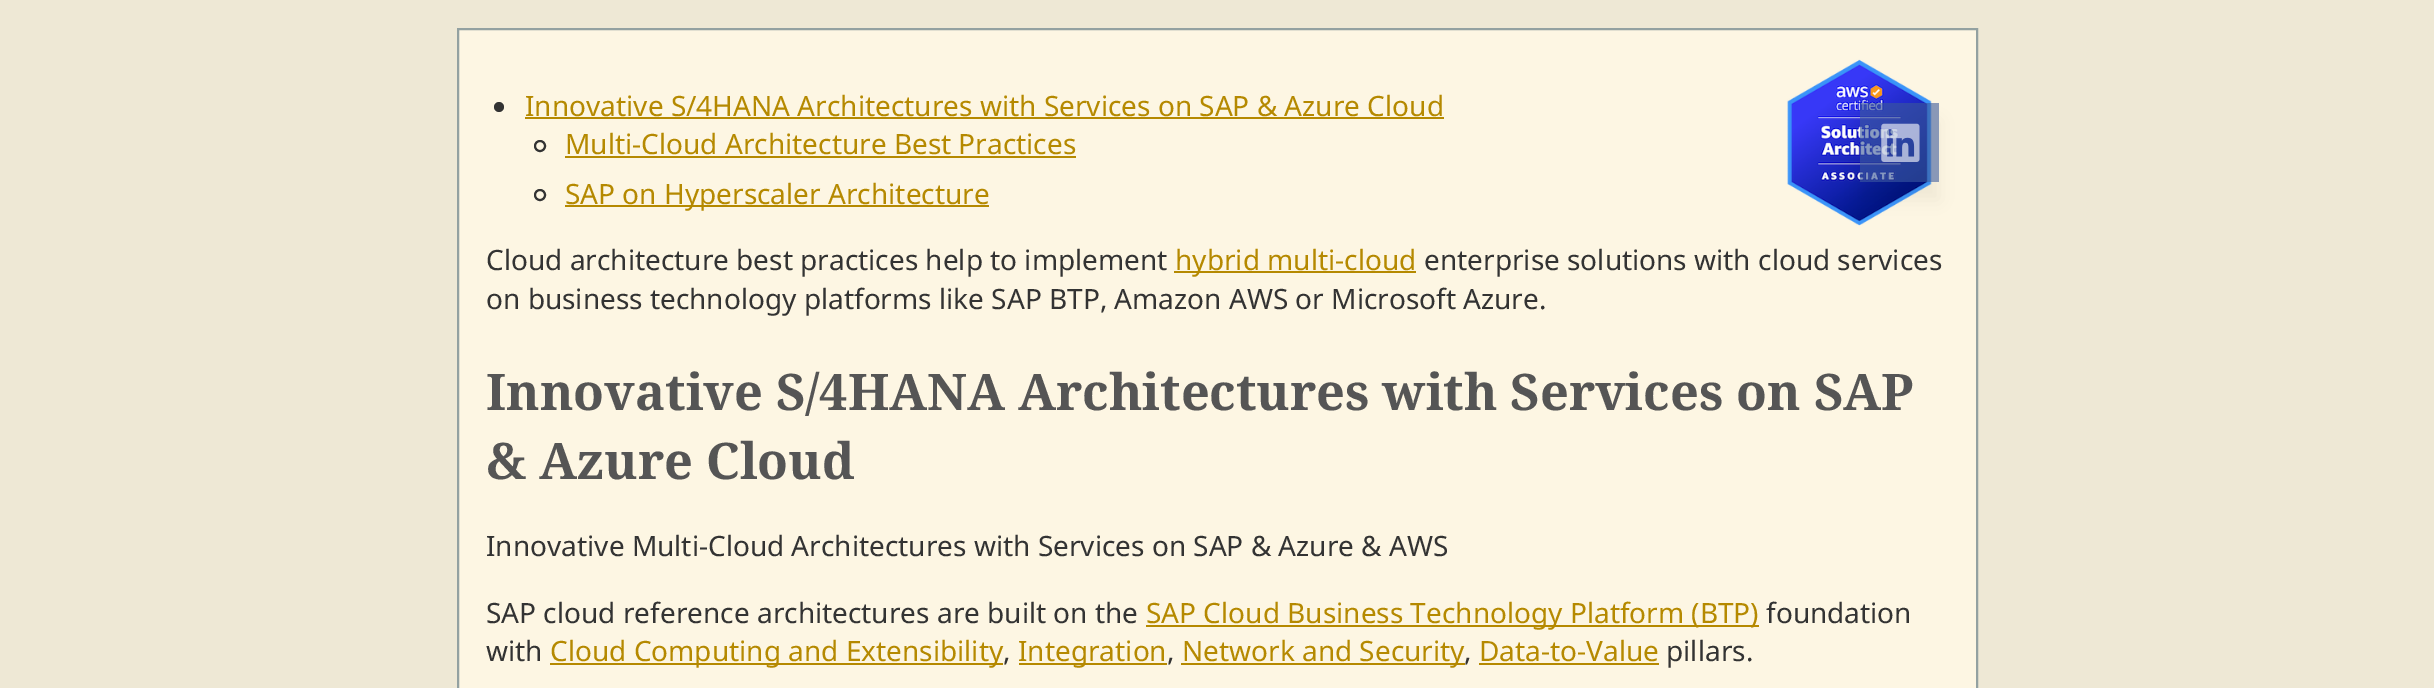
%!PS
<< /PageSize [2434 688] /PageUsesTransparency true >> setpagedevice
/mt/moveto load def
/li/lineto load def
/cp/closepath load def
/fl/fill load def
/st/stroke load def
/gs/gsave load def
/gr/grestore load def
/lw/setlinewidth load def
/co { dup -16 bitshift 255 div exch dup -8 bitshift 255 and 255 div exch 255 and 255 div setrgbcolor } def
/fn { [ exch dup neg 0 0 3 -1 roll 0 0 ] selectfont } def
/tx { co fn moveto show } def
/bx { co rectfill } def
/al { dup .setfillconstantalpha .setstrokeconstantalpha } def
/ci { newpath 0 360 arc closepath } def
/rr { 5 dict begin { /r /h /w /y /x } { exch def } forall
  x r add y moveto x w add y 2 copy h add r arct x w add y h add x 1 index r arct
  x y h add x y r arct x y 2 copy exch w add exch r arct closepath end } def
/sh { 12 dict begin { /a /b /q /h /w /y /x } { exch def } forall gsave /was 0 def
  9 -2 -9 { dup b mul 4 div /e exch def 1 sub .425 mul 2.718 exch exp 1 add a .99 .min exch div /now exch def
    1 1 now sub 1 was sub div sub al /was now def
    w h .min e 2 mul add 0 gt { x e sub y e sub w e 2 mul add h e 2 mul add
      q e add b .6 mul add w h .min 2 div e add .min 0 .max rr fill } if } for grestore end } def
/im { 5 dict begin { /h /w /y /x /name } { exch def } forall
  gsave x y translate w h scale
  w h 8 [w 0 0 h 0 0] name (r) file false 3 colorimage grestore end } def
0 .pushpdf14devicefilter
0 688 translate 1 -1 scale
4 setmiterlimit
0 0 2434 688 16#EEE8D5 bx
16#FDF6E3 co
458 29 mt 1977 29 li 1977 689 li 458 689 li cp gs fl gr
16#93A1A1 co
2 lw
st
(media/1.raw) 1787 59 145 167 im
16#333333 co
499 107 5 ci fl
525 117 919 2 16#B58900 bx
16#333333 co
540 146 5 ci st
565 156 511 2 16#B58900 bx
16#333333 co
540 195 5 ci st
565 205 424 2 16#B58900 bx
gs
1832 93 mt 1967 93 li 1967 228 li 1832 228 li cp 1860 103 mt 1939 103 li 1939 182 li 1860 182 li cp eoclip newpath
16#000000 co
1860 121 79 79 0 9 .06 sh
gr
0.6 al
1860 103 79 79 16#3B5999 bx
1 al
(media/2.raw) 1881 123 39 39 im
1174 271 242 2 16#B58900 bx
1146 625 613 2 16#B58900 bx
550 663 453 2 16#B58900 bx
1019 663 148 2 16#B58900 bx
1181 663 284 2 16#B58900 bx
1479 663 180 2 16#B58900 bx
(Innovative S/4HANA Architectures with Services on SAP & Azure Cloud) 525 116 /NotoSans-Regular 28 16#B58900 tx
(Multi-Cloud Architecture Best Practices) 565 154 /NotoSans-Regular 28 16#B58900 tx
(SAP on Hyperscaler Architecture) 565 204 /NotoSans-Regular 28 16#B58900 tx
(Cloud architecture best practices help to implement) 486 270 /NotoSans-Regular 28 16#333333 tx
(hybrid multi-cloud) 1175 270 /NotoSans-Regular 28 16#B58900 tx
(enterprise solutions with cloud services) 1424 270 /NotoSans-Regular 28 16#333333 tx
(on business technology platforms like SAP BTP, Amazon AWS or Microsoft Azure.) 486 309 /NotoSans-Regular 28 16#333333 tx
(Innovative S/4HANA Architectures with Services on SAP) 486 410 /NotoSerif-Bold 50.4 16#555555 tx
(& Azure Cloud) 486 479 /NotoSerif-Bold 50.4 16#555555 tx
(Innovative Multi-Cloud Architectures with Services on SAP & Azure & AWS) 486 556 /NotoSans-Regular 28 16#333333 tx
(SAP cloud reference architectures are built on the) 486 623 /NotoSans-Regular 28 16#333333 tx
(SAP Cloud Business Technology Platform \(BTP\)) 1146 623 /NotoSans-Regular 28 16#B58900 tx
(foundation) 1766 623 /NotoSans-Regular 28 16#333333 tx
(with) 486 661 /NotoSans-Regular 28 16#333333 tx
(Cloud Computing and Extensibility) 550 661 /NotoSans-Regular 28 16#B58900 tx
(,) 1003 661 /NotoSans-Regular 28 16#333333 tx
(Integration) 1018 661 /NotoSans-Regular 28 16#B58900 tx
(,) 1167 661 /NotoSans-Regular 28 16#333333 tx
(Network and Security) 1182 661 /NotoSans-Regular 28 16#B58900 tx
(,) 1464 661 /NotoSans-Regular 28 16#333333 tx
(Data-to-Value) 1479 661 /NotoSans-Regular 28 16#B58900 tx
(pillars.) 1666 661 /NotoSans-Regular 28 16#333333 tx
.poppdf14devicefilter showpage
